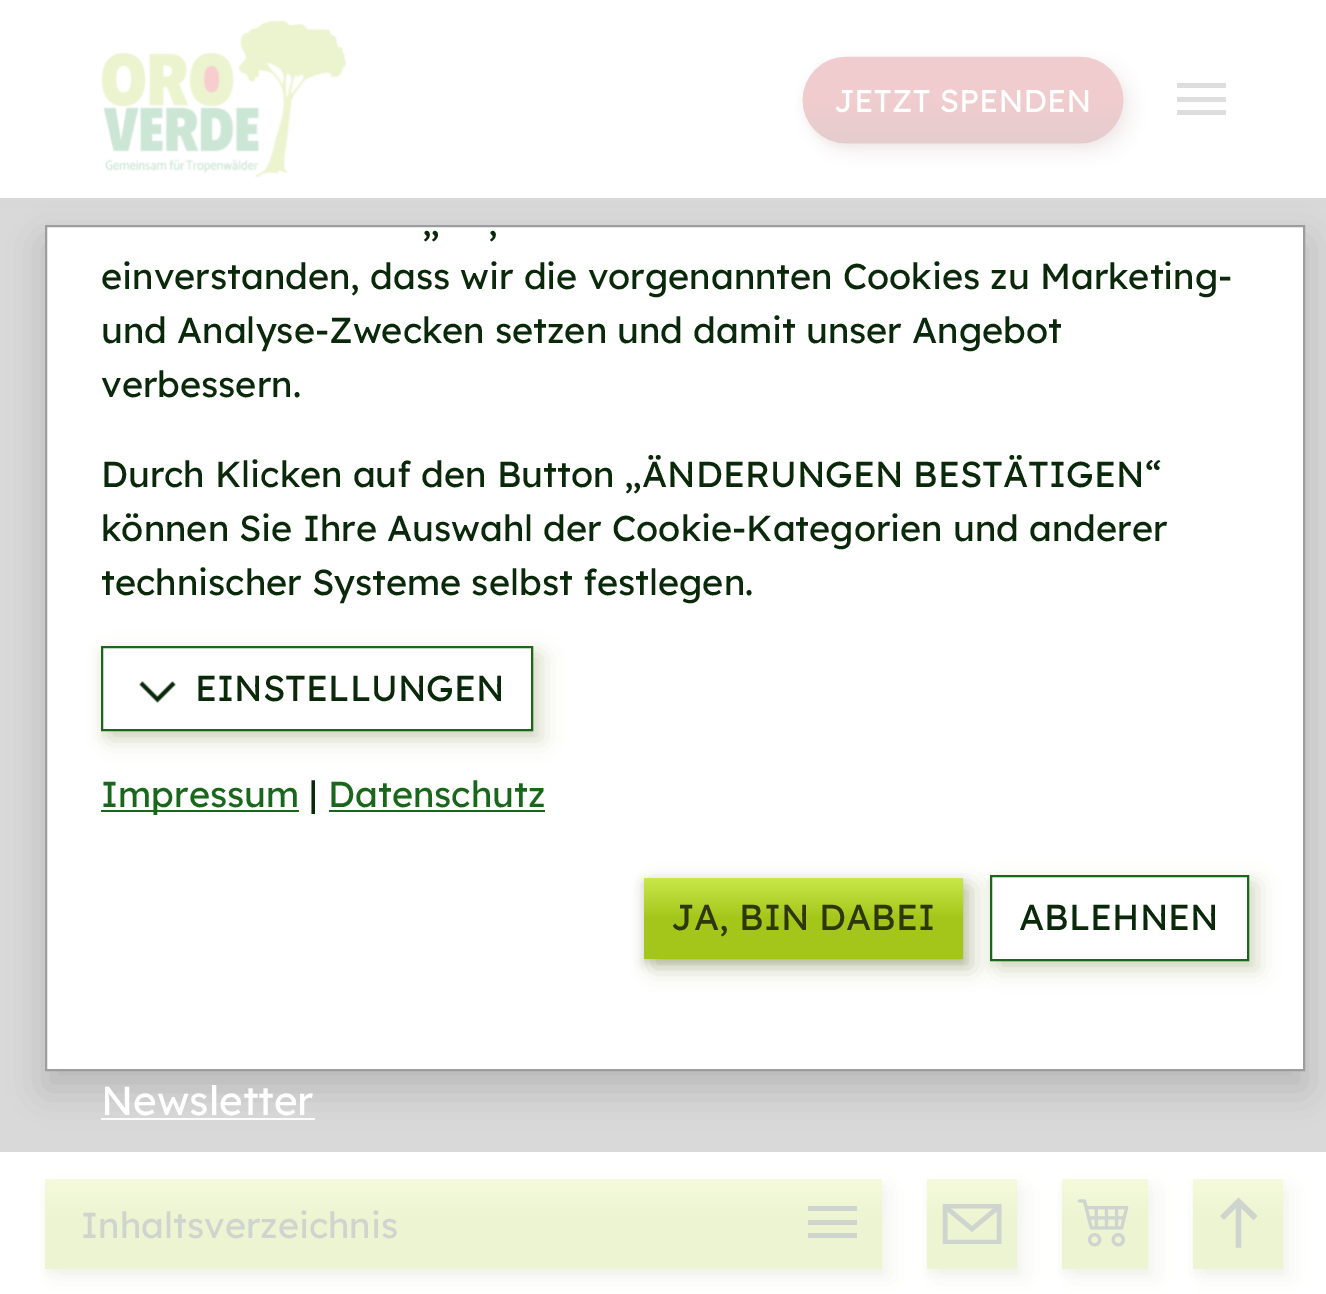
%!PS
<< /PageSize [1326 1294] /PageUsesTransparency true >> setpagedevice
/mt/moveto load def
/li/lineto load def
/cp/closepath load def
/fl/fill load def
/st/stroke load def
/gs/gsave load def
/gr/grestore load def
/lw/setlinewidth load def
/co { dup -16 bitshift 255 div exch dup -8 bitshift 255 and 255 div exch 255 and 255 div setrgbcolor } def
/fn { [ exch dup neg 0 0 3 -1 roll 0 0 ] selectfont } def
/tx { co fn moveto show } def
/bx { co rectfill } def
/al { dup .setfillconstantalpha .setstrokeconstantalpha } def
/rr { 5 dict begin { /r /h /w /y /x } { exch def } forall
  x r add y moveto x w add y 2 copy h add r arct x w add y h add x 1 index r arct
  x y h add x y r arct x y 2 copy exch w add exch r arct closepath end } def
/sh { 12 dict begin { /a /b /q /h /w /y /x } { exch def } forall gsave /was 0 def
  9 -2 -9 { dup b mul 4 div /e exch def 1 sub .425 mul 2.718 exch exp 1 add a .99 .min exch div /now exch def
    1 1 now sub 1 was sub div sub al /was now def
    w h .min e 2 mul add 0 gt { x e sub y e sub w e 2 mul add h e 2 mul add
      q e add b .6 mul add w h .min 2 div e add .min 0 .max rr fill } if } for grestore end } def
/im { 5 dict begin { /h /w /y /x /name } { exch def } forall
  gsave x y translate w h scale
  w h 8 [w 0 0 h 0 0] name (r) file false 3 colorimage grestore end } def
0 .pushpdf14devicefilter
0 1294 translate 1 -1 scale
4 setmiterlimit
0 0 1326 1294 16#D9D9D9 bx
16#CCCCCC co
-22 -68 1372 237 0 22.5 1 sh
0 0 1326 198 16#FFFFFF bx
101 1118 214 2 16#FFFFFF bx
16#000000 co
45 243 1260 846 0 18 .15 sh
16#FFFFFF co
46 226 mt 1304 226 li 1304 1070 li 46 1070 li cp gs fl gr
16#9D9D9D co
2 lw
st
16#4B6008 co
101 650 432 86 0 4.5 .1 sh
110 655 432 85 0 11 .2 sh
16#FFFFFF co
102 647 mt 532 647 li 532 730 li 102 730 li cp gs fl gr
16#19671A co
st
(media/1.raw) 139 681 37 22 im
101 810 198 2 16#19671A bx
329 810 216 2 16#19671A bx
16#2E3807 co
644 882 319 81 0 4.5 .2 sh
16#4B6008 co
653 887 319 81 0 11 .3 sh
gs 644 878 mt 963 878 li 963 959 li 644 959 li cp clip newpath
<< /ShadingType 2 /ColorSpace /DeviceRGB /Coords [803 959 803 878] /Extend [true true] /Function << /FunctionType 3 /Domain [0 1] /Functions [<< /FunctionType 2 /Domain [0 1] /C0 [.643 .776 .102] /C1 [.643 .776 .102] /N 1 >> << /FunctionType 2 /Domain [0 1] /C0 [.643 .776 .102] /C1 [.784 .91 .29] /N 1 >>] /Bounds [.5] /Encode [0 1 0 1] >> >> shfill gr
990 880 259 85 0 4.5 .1 sh
999 884 259 86 0 11 .2 sh
16#FFFFFF co
991 876 mt 1248 876 li 1248 960 li 991 960 li cp gs fl gr
16#19671A co
st
(media/2.raw) 101 20 246 158 im
(media/3.raw) 795 49 351 118 im
1177 97 49 5 16#DEDEDE bx
1177 83 49 5 16#DEDEDE bx
1177 110 49 5 16#DEDEDE bx
0 1152 1326 142 16#FFFFFF bx
16#D5D7CD co
45 1184 837 90 0 4.5 .2 sh
16#DBDFCE co
54 1188 837 90 0 11 .3 sh
gs 45 1179 mt 882 1179 li 882 1269 li 45 1269 li cp clip newpath
<< /ShadingType 2 /ColorSpace /DeviceRGB /Coords [464 1269 464 1179] /Extend [true true] /Function << /FunctionType 3 /Domain [0 1] /Functions [<< /FunctionType 2 /Domain [0 1] /C0 [.929 .957 .82] /C1 [.929 .957 .82] /N 1 >> << /FunctionType 2 /Domain [0 1] /C0 [.929 .957 .82] /C1 [.957 .98 .859] /N 1 >>] /Bounds [.5] /Encode [0 1 0 1] >> >> shfill gr
808 1220 49 5 16#CED4CE bx
808 1206 49 5 16#CED4CE bx
808 1233 49 5 16#CED4CE bx
16#D5D7CD co
927 1184 90 90 0 4.5 .2 sh
16#DBDFCE co
936 1188 90 90 0 11 .3 sh
gs 927 1179 mt 1017 1179 li 1017 1269 li 927 1269 li cp clip newpath
<< /ShadingType 2 /ColorSpace /DeviceRGB /Coords [972 1269 972 1179] /Extend [true true] /Function << /FunctionType 3 /Domain [0 1] /Functions [<< /FunctionType 2 /Domain [0 1] /C0 [.929 .957 .82] /C1 [.929 .957 .82] /N 1 >> << /FunctionType 2 /Domain [0 1] /C0 [.929 .957 .82] /C1 [.957 .98 .859] /N 1 >>] /Bounds [.5] /Encode [0 1 0 1] >> >> shfill gr
gs
927 1204 90 40 rectclip
16#CED4CE co
4.5 lw
999 1206 mt 999 1242 li 945 1242 li 945 1206 li cp st
gr
16#CED4CE co
4.5 lw
945.5 1207 mt 972 1229 li 998.5 1207 li st
16#D5D7CD co
1062 1184 86 90 0 4.5 .2 sh
16#DBDFCE co
1071 1188 86 90 0 11 .3 sh
gs 1062 1179 mt 1148 1179 li 1148 1269 li 1062 1269 li cp clip newpath
<< /ShadingType 2 /ColorSpace /DeviceRGB /Coords [1105 1269 1105 1179] /Extend [true true] /Function << /FunctionType 3 /Domain [0 1] /Functions [<< /FunctionType 2 /Domain [0 1] /C0 [.929 .957 .82] /C1 [.929 .957 .82] /N 1 >> << /FunctionType 2 /Domain [0 1] /C0 [.929 .957 .82] /C1 [.957 .98 .859] /N 1 >>] /Bounds [.5] /Encode [0 1 0 1] >> >> shfill gr
(media/4.raw) 1077 1199 52 48 im
16#D5D7CD co
1193 1184 90 90 0 4.5 .2 sh
16#DBDFCE co
1202 1188 90 90 0 11 .3 sh
gs 1193 1179 mt 1283 1179 li 1283 1269 li 1193 1269 li cp clip newpath
<< /ShadingType 2 /ColorSpace /DeviceRGB /Coords [1238 1269 1238 1179] /Extend [true true] /Function << /FunctionType 3 /Domain [0 1] /Functions [<< /FunctionType 2 /Domain [0 1] /C0 [.929 .957 .82] /C1 [.929 .957 .82] /N 1 >> << /FunctionType 2 /Domain [0 1] /C0 [.929 .957 .82] /C1 [.957 .98 .859] /N 1 >>] /Bounds [.5] /Encode [0 1 0 1] >> >> shfill gr
1238 1202 1 44 16#CED4CE bx
2.2 lw
1237 1202 mt 1237 1246.5 li 1240 1246.5 li 1240 1202 li cp st
5.6 lw
1255.5 1218 mt 1238.5 1201.5 li 1222 1218 li st
(„) 422 235 /Lexend-Regular 36 16#0A290A tx
(,) 488 235 /Lexend-Regular 36 16#0A290A tx
(einverstanden, dass wir die vorgenannten Cookies zu Marketing-) 101 289 /Lexend-Regular 36 16#0A290A tx
(und Analyse-Zwecken setzen und damit unser Angebot) 101 343 /Lexend-Regular 36 16#0A290A tx
(verbessern.) 101 397 /Lexend-Regular 36 16#0A290A tx
(Durch Klicken auf den Button „ÄNDERUNGEN BESTÄTIGEN“) 101 487 /Lexend-Regular 36 16#0A290A tx
(können Sie Ihre Auswahl der Cookie-Kategorien und anderer) 101 541 /Lexend-Regular 36 16#0A290A tx
(technischer Systeme selbst festlegen.) 101 595 /Lexend-Regular 36 16#0A290A tx
(EINSTELLUNGEN) 195 701 /Lexend-Regular 36 16#0A290A tx
(Impressum) 101 807 /Lexend-Regular 36 16#19671A tx
(|) 309 807 /Lexend-Regular 36 16#0A290A tx
(Datenschutz) 328 807 /Lexend-Regular 36 16#19671A tx
(JA, BIN DABEI) 671 930 /Lexend-Regular 36 16#2E3807 tx
(ABLEHNEN) 1019 930 /Lexend-Regular 36 16#0A290A tx
(Newsletter) 101 1115 /Lexend-Regular 40.5 16#FFFFFF tx
(Inhaltsverzeichnis) 81 1238 /Lexend-Regular 36 16#CED4CE tx
.poppdf14devicefilter showpage
